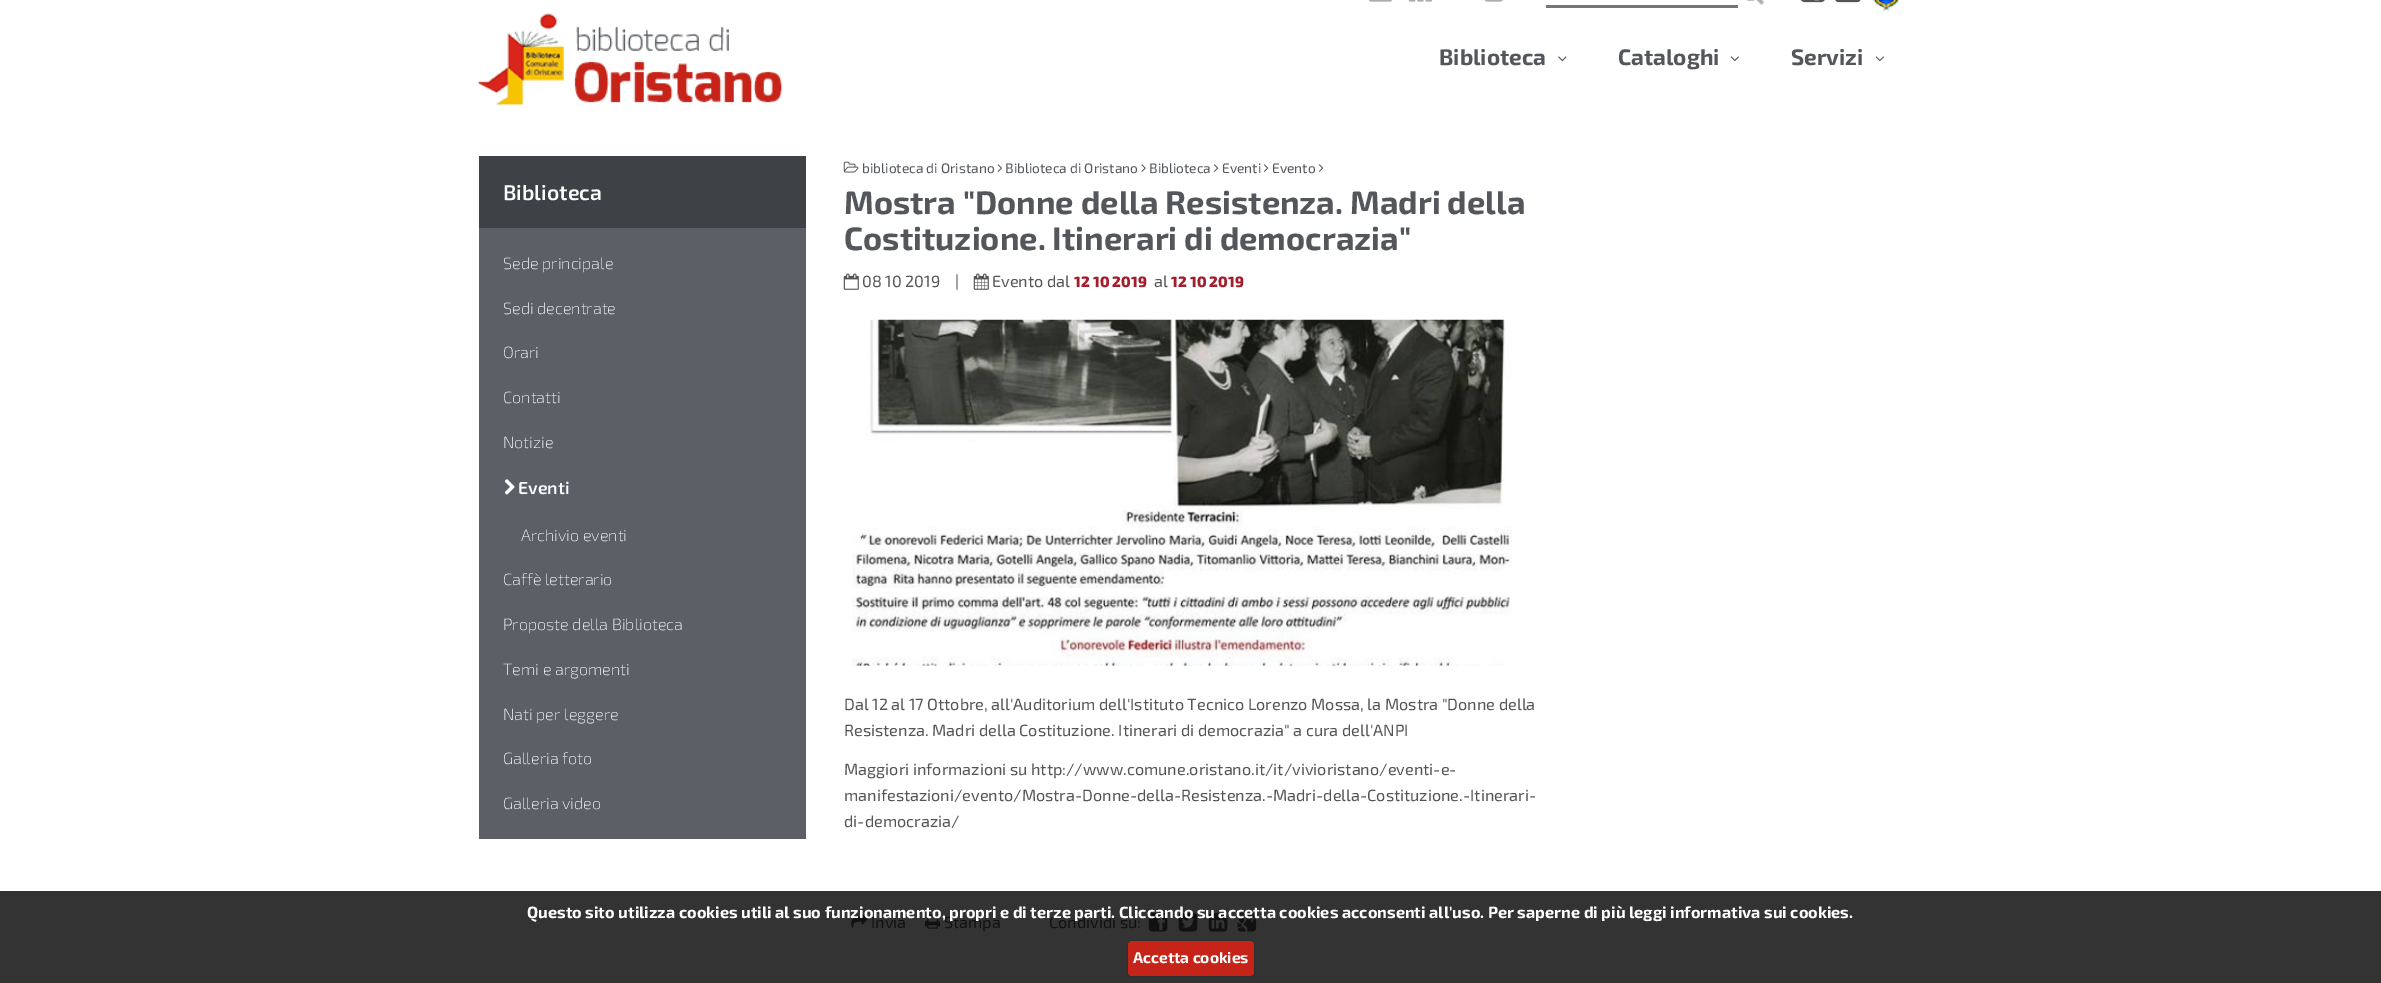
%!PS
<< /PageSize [2381 983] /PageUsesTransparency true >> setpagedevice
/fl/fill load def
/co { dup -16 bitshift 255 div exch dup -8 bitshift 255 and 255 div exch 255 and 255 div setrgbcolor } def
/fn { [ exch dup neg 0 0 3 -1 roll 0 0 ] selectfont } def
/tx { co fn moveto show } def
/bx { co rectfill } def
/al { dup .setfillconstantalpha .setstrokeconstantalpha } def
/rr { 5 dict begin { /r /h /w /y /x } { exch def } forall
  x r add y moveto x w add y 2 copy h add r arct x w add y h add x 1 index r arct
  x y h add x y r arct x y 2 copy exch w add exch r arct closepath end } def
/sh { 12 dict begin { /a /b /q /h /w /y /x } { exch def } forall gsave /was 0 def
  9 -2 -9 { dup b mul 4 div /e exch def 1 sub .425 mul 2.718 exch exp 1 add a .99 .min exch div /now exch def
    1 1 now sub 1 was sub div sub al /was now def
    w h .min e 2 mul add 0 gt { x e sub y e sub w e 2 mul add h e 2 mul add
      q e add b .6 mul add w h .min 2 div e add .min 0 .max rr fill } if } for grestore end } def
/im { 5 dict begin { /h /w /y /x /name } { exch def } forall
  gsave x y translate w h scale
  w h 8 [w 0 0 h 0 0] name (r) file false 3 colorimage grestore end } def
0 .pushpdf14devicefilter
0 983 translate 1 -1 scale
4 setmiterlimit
0 0 2381 983 16#FFFFFF bx
0 891 2381 92 16#333333 bx
(media/1.raw) 1368 0 24 2 im
(media/2.raw) 1408 0 25 2 im
(media/3.raw) 1484 0 19 2 im
(media/4.raw) 1746 0 18 5 im
1546 5 192 3 16#767676 bx
(media/5.raw) 1801 0 24 3 im
(media/6.raw) 1835 0 26 3 im
(media/7.raw) 1873 0 26 11 im
(media/8.raw) 478 13 304 92 im
(media/9.raw) 1558 56 9 6 im
(media/10.raw) 1730 56 9 6 im
(media/10.raw) 1875 56 9 6 im
479 228 327 611 16#5C5F66 bx
479 156 327 72 16#3E4145 bx
(media/11.raw) 504 479 11 16 im
(media/12.raw) 843 161 16 12 im
(media/13.raw) 997 164 5 8 im
(media/14.raw) 1141 164 5 8 im
(media/15.raw) 1213 164 6 8 im
(media/15.raw) 1263 164 6 8 im
(media/15.raw) 1318 164 6 8 im
(media/16.raw) 843 273 16 17 im
(media/17.raw) 973 273 16 17 im
(media/18.raw) 852 319 660 347 im
(media/19.raw) 851 914 17 15 im
(media/20.raw) 925 914 16 15 im
(media/21.raw) 1148 913 20 19 im
(media/22.raw) 1178 913 20 19 im
(media/23.raw) 1208 913 20 19 im
(media/24.raw) 1237 913 20 19 im
16#000000 co
1128 941 126 35 4 1 .25 sh
16#C62418 co
1128 941 126 35 4 rr fl
(Biblioteca) 1439 65 /Exo2-Bold 22.5 16#53565B tx
(Cataloghi) 1618 65 /Exo2-Bold 22.5 16#53565B tx
(Servizi) 1791 65 /Exo2-Bold 22.5 16#53565B tx
(Biblioteca) 503 200 /Exo2-SemiBold 21.25 16#FFFFFF tx
(Sede principale) 503 269 /Exo2-ExtraLight 16.25 16#FFFFFF tx
(Sedi decentrate) 503 314 /Exo2-ExtraLight 16.25 16#FFFFFF tx
(Orari) 503 358 /Exo2-ExtraLight 16.25 16#FFFFFF tx
(Contatti) 503 403 /Exo2-ExtraLight 16.25 16#FFFFFF tx
(Notizie) 503 448 /Exo2-ExtraLight 16.25 16#FFFFFF tx
(Eventi) 518 494 /Exo2-SemiBold 17.5 16#FFFFFF tx
(Archivio eventi) 521 541 /Exo2-ExtraLight 16.25 16#FFFFFF tx
(Caffè letterario) 503 585 /Exo2-ExtraLight 16.25 16#FFFFFF tx
(Proposte della Biblioteca) 503 630 /Exo2-ExtraLight 16.25 16#FFFFFF tx
(Temi e argomenti) 503 675 /Exo2-ExtraLight 16.25 16#FFFFFF tx
(Nati per leggere) 503 720 /Exo2-ExtraLight 16.25 16#FFFFFF tx
(Galleria foto) 503 764 /Exo2-ExtraLight 16.25 16#FFFFFF tx
(Galleria video) 503 809 /Exo2-ExtraLight 16.25 16#FFFFFF tx
(biblioteca di Oristano) 862 173 /Exo2-Regular 13.75 16#53565B tx
(Biblioteca di Oristano) 1005 173 /Exo2-Regular 13.75 16#53565B tx
(Biblioteca) 1149 173 /Exo2-Regular 13.75 16#53565B tx
(Eventi) 1222 173 /Exo2-Regular 13.75 16#53565B tx
(Evento) 1272 173 /Exo2-Regular 13.75 16#53565B tx
(Mostra "Donne della Resistenza. Madri della) 844 214 /Exo2-Bold 32.5 16#53565B tx
(Costituzione. Itinerari di democrazia") 844 250 /Exo2-Bold 32.5 16#53565B tx
(08 10 2019) 862 287 /Exo2-Regular 16.25 16#555555 tx
(|) 955 287 /Exo2-Regular 16.25 16#555555 tx
(Evento dal) 992 287 /Exo2-Regular 16.25 16#555555 tx
(12 10 2019) 1074 287 /Exo2-ExtraBold 15 16#A31E2D tx
(al) 1154 287 /Exo2-Regular 16.25 16#555555 tx
(12 10 2019) 1171 287 /Exo2-ExtraBold 15 16#A31E2D tx
(Dal 12 al 17 Ottobre, all'Auditorium dell'Istituto Tecnico Lorenzo Mossa, la Mostra "Donne della) 844 710 /Exo2-Regular 16.25 16#555555 tx
(Resistenza. Madri della Costituzione. Itinerari di democrazia" a cura dell'ANPI) 844 736 /Exo2-Regular 16.25 16#555555 tx
(Maggiori informazioni su http://www.comune.oristano.it/it/vivioristano/eventi-e-) 844 775 /Exo2-Regular 16.25 16#555555 tx
(manifestazioni/evento/Mostra-Donne-della-Resistenza.-Madri-della-Costituzione.-Itinerari-) 844 801 /Exo2-Regular 16.25 16#555555 tx
(di-democrazia/) 844 827 /Exo2-Regular 16.25 16#555555 tx
(Invia) 871 928 /Exo2-Regular 16.25 16#111111 tx
(Stampa) 944 928 /Exo2-Regular 16.25 16#111111 tx
(Condividi su:) 1049 928 /Exo2-Regular 16.25 16#111111 tx
(Questo sito utilizza cookies utili al suo funzionamento, propri e di terze parti. Cliccando su accetta cookies acconsenti all'uso. Per saperne di più leggi informativa sui cookies.) 527 918 /Exo2-Bold 16.25 16#FFFFFF tx
(Accetta cookies) 1133 963 /Exo2-Bold 15.5 16#FFFFFF tx
.poppdf14devicefilter showpage
